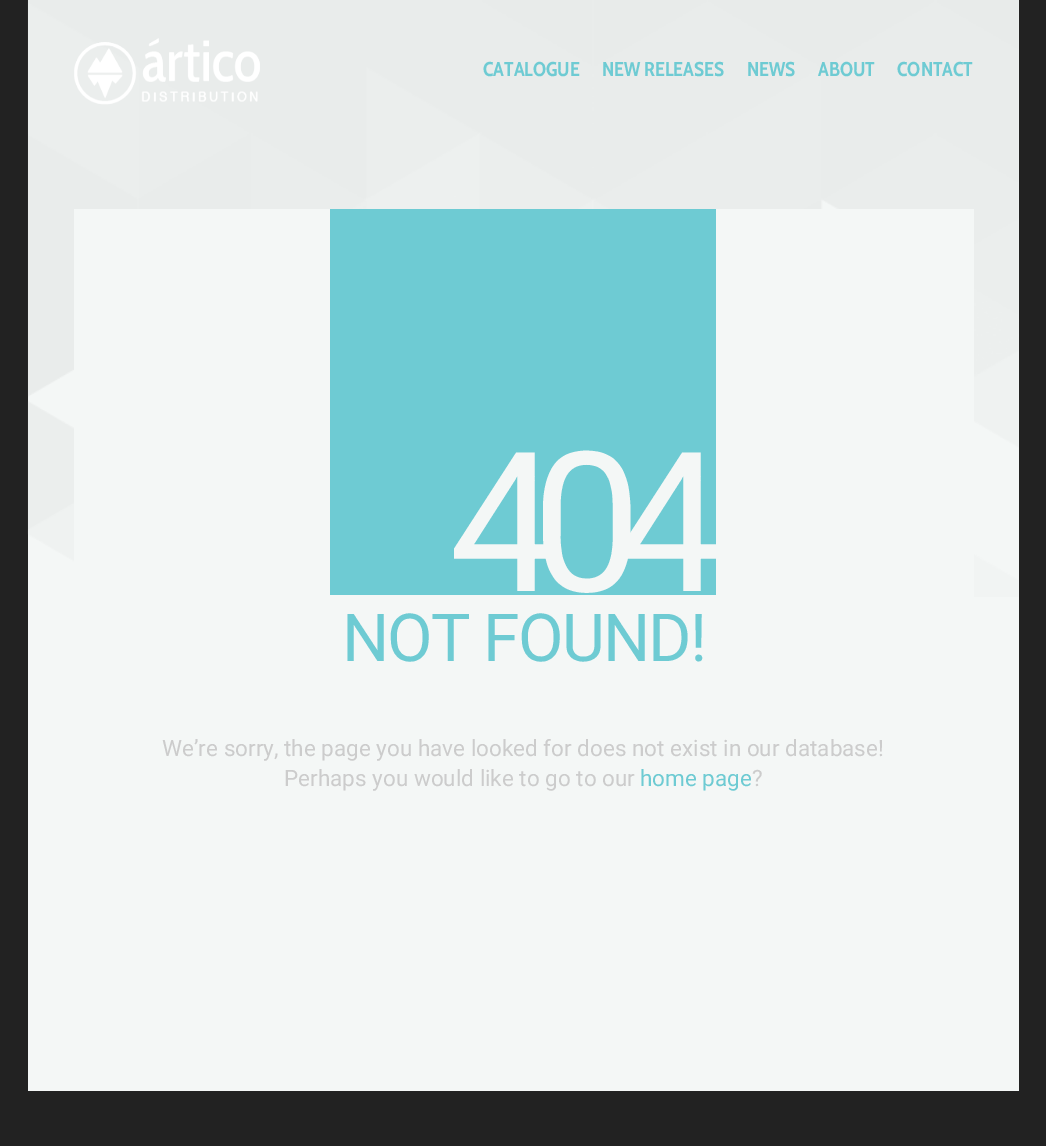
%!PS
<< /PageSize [1046 1146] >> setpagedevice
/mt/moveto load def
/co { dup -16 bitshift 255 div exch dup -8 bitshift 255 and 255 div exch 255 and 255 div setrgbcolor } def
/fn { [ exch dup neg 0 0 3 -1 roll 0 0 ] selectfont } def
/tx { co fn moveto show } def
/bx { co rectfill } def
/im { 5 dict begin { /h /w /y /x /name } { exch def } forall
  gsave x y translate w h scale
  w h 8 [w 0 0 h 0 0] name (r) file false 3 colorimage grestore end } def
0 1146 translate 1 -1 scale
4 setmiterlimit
0 0 1046 1146 16#222222 bx
28 0 991 1091 16#F4F7F6 bx
(media/1.raw) 27 0 992 597 im
(media/3.raw) 74 38 186 67 im
(media/2.raw) 74 38 186 66 im
74 209 900 388 16#F4F7F6 bx
330 209 386 386 16#6ECBD3 bx
(CATALOGUE) 483 76 /CabinCondensed-Bold 20 16#6ECBD3 tx
(NEW RELEASES) 602 76 /CabinCondensed-Bold 20 16#6ECBD3 tx
(NEWS) 747 76 /CabinCondensed-Bold 20 16#6ECBD3 tx
(ABOUT) 818 76 /CabinCondensed-Bold 20 16#6ECBD3 tx
(CONTACT) 897 76 /CabinCondensed-Bold 20 16#6ECBD3 tx
/Roboto-Regular 195 fn
16#F4F7F6 co
449 591 mt -37.5 0 (4 0 4) ashow
/Roboto-Regular 66.25 fn
16#6ECBD3 co
342 661 mt -1.9 0 (NOT FOUND!) ashow
(We’re sorry, the page you have looked for does not exist in our database!) 162 756 /Roboto-Regular 22.5 16#CCCCCC tx
(Perhaps you would like to go to our) 284 786 /Roboto-Regular 22.5 16#CCCCCC tx
(home page) 640 786 /Roboto-Regular 22.5 16#6ECBD3 tx
(?) 752 786 /Roboto-Regular 22.5 16#CCCCCC tx
showpage
